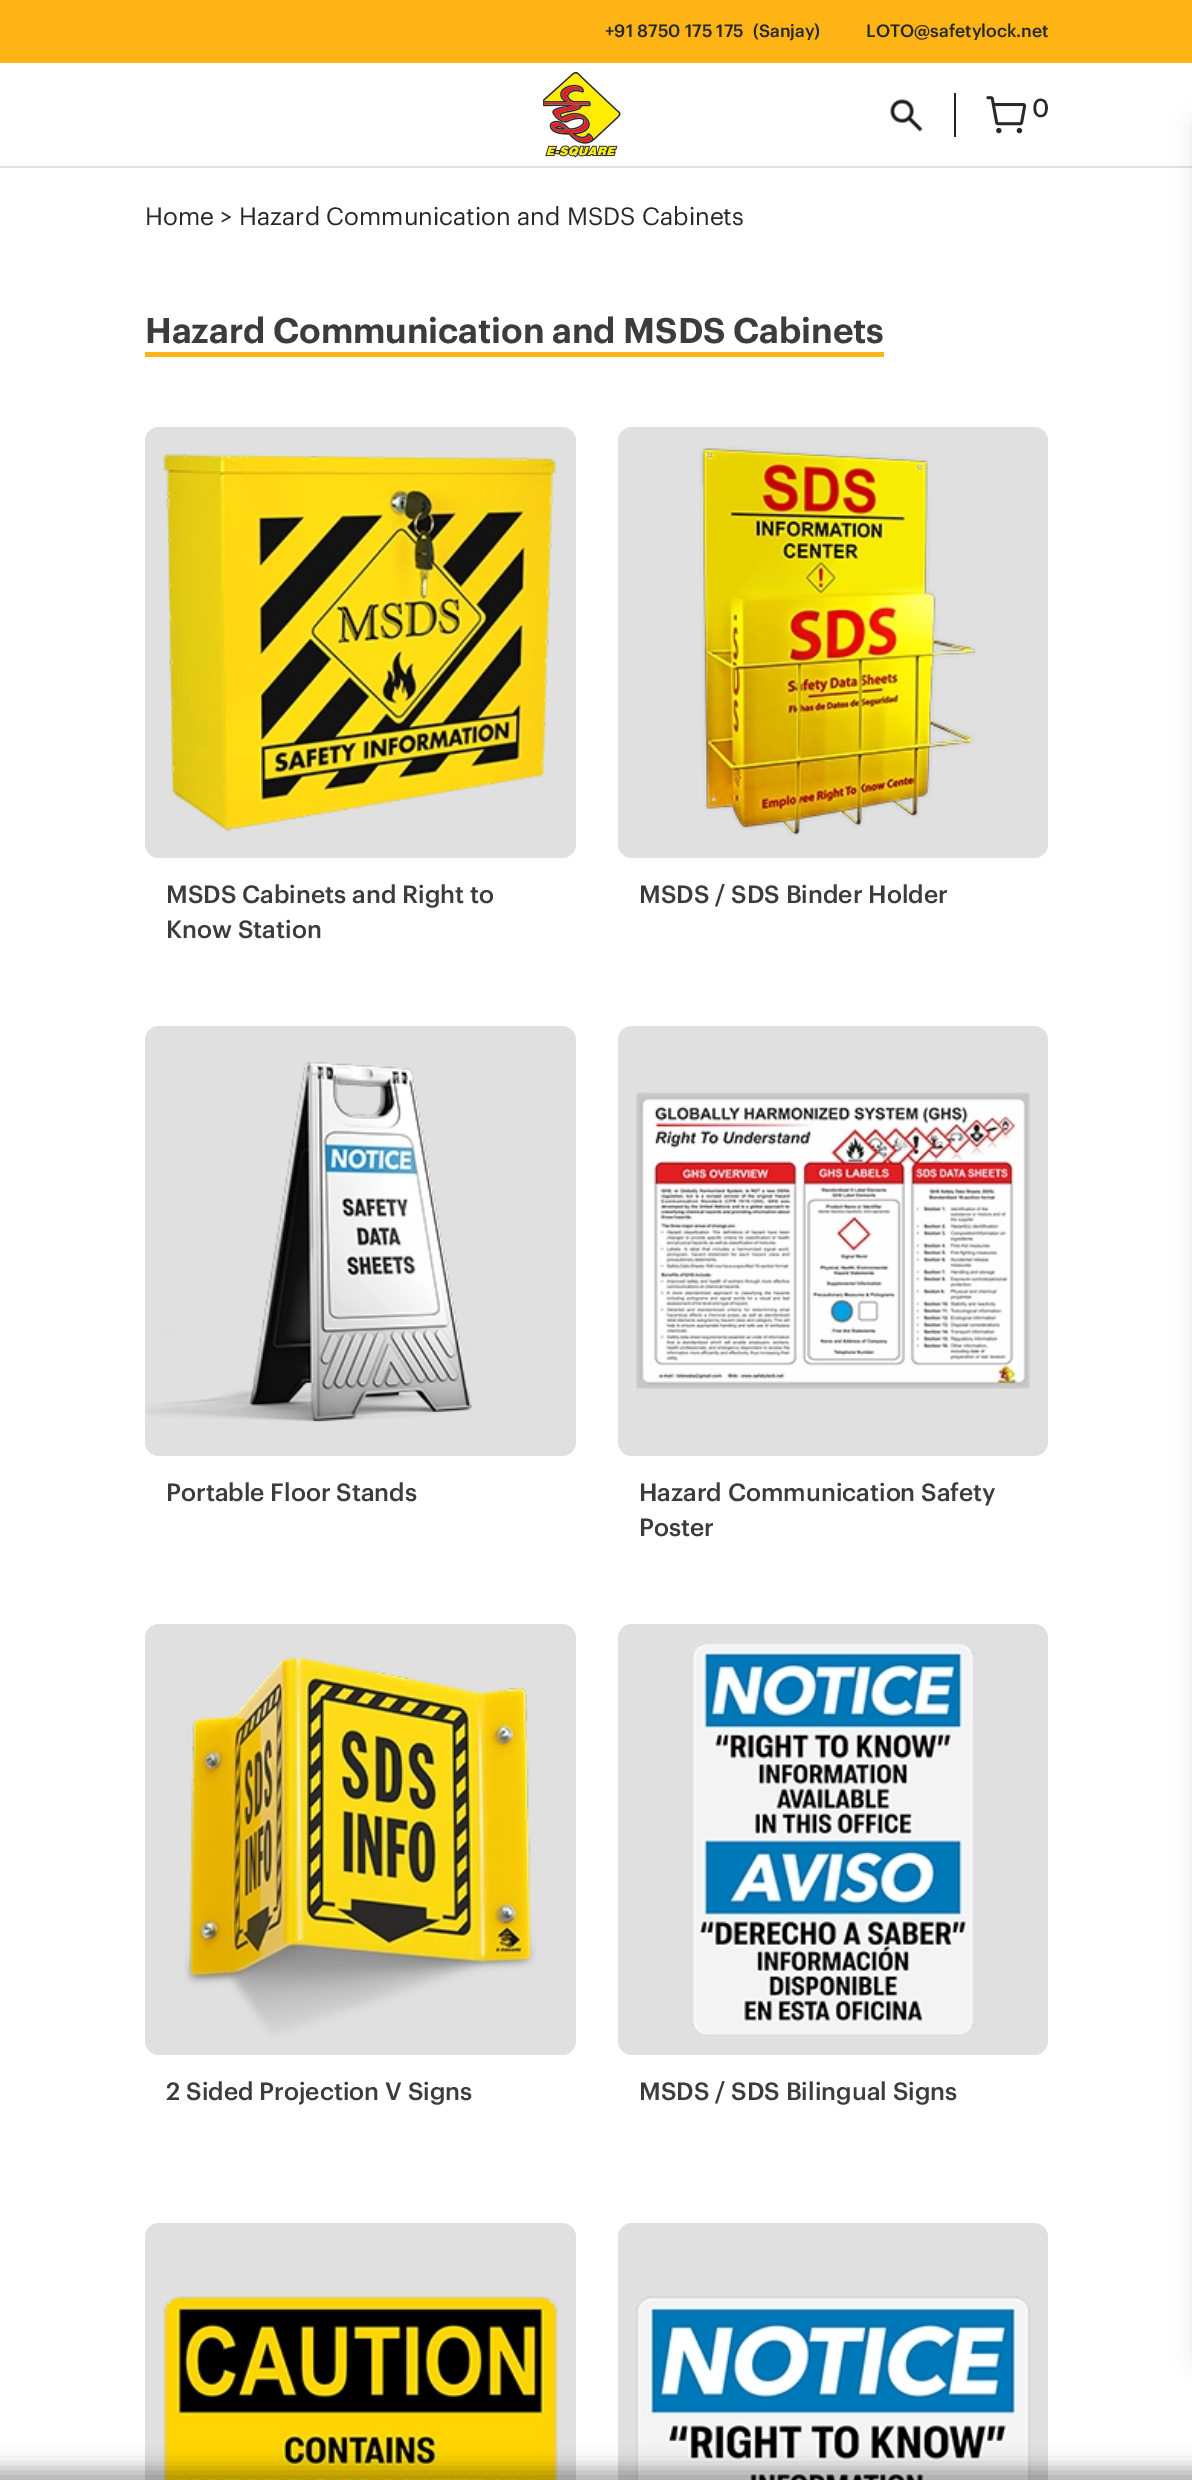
%!PS
<< /PageSize [1192 2480] /PageUsesTransparency true >> setpagedevice
/fl/fill load def
/co { dup -16 bitshift 255 div exch dup -8 bitshift 255 and 255 div exch 255 and 255 div setrgbcolor } def
/fn { [ exch dup neg 0 0 3 -1 roll 0 0 ] selectfont } def
/tx { co fn moveto show } def
/bx { co rectfill } def
/al { dup .setfillconstantalpha .setstrokeconstantalpha } def
/rr { 5 dict begin { /r /h /w /y /x } { exch def } forall
  x r add y moveto x w add y 2 copy h add r arct x w add y h add x 1 index r arct
  x y h add x y r arct x y 2 copy exch w add exch r arct closepath end } def
/sh { 12 dict begin { /a /b /q /h /w /y /x } { exch def } forall gsave /was 0 def
  9 -2 -9 { dup b mul 4 div /e exch def 1 sub .425 mul 2.718 exch exp 1 add a .99 .min exch div /now exch def
    1 1 now sub 1 was sub div sub al /was now def
    w h .min e 2 mul add 0 gt { x e sub y e sub w e 2 mul add h e 2 mul add
      q e add b .6 mul add w h .min 2 div e add .min 0 .max rr fill } if } for grestore end } def
/im { 5 dict begin { /h /w /y /x /name } { exch def } forall
  gsave x y translate w h scale
  w h 8 [w 0 0 h 0 0] name (r) file false 3 colorimage grestore end } def
0 .pushpdf14devicefilter
0 2480 translate 1 -1 scale
4 setmiterlimit
0 0 1192 2480 16#FFFFFF bx
0 0 1192 63 16#FDB414 bx
0 166 1192 2 16#E0E0E0 bx
(media/1.raw) 543 72 78 86 im
954 93 2 44 16#222222 bx
(media/2.raw) 890 99 33 33 im
(media/3.raw) 986 96 41 38 im
16#000000 co
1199 124 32 2233 0 13 .15 sh
145 352 739 5 16#FDB414 bx
16#E0E0E0 co
145 427 431 431 14 rr fl
(media/4.raw) 163 453 394 379 im
618 427 430 431 14 rr fl
(media/5.raw) 700 447 276 389 im
145 1026 431 430 14 rr fl
(media/6.raw) 145 1062 328 360 im
618 1026 430 430 14 rr fl
(media/7.raw) 636 1092 394 297 im
145 1624 431 431 14 rr fl
(media/8.raw) 184 1657 352 380 im
618 1624 430 431 14 rr fl
(media/9.raw) 691 1642 284 394 im
145 2223 431 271 14 rr fl
(media/10.raw) 163 2295 395 185 im
618 2223 430 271 14 rr fl
(media/11.raw) 636 2295 395 185 im
16#000000 co
-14 2468 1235 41 0 9.5 .31 sh
(+91 8750 175 175) 605 37 /Graphik-Medium 17.5 16#282828 tx
(\(Sanjay\)) 753 37 /Graphik-Medium 17.5 16#282828 tx
(LOTO@safetylock.net) 866 37 /Graphik-Medium 17.5 16#282828 tx
(0) 1032 117 /Graphik-Bold 24.5 16#282828 tx
(Home > Hazard Communication and MSDS Cabinets) 145 225 /Graphik-Regular 24.5 16#282828 tx
(Hazard Communication and MSDS Cabinets) 145 343 /Graphik-SemiBold 35 16#3C3C3C tx
(MSDS Cabinets and Right to) 166 903 /Graphik-Medium 24.5 16#3C3C3C tx
(Know Station) 166 938 /Graphik-Medium 24.5 16#3C3C3C tx
(MSDS / SDS Binder Holder) 639 903 /Graphik-Medium 24.5 16#3C3C3C tx
(Portable Floor Stands) 166 1501 /Graphik-Medium 24.5 16#3C3C3C tx
(Hazard Communication Safety) 639 1501 /Graphik-Medium 24.5 16#3C3C3C tx
(Poster) 639 1536 /Graphik-Medium 24.5 16#3C3C3C tx
(2 Sided Projection V Signs) 166 2100 /Graphik-Medium 24.5 16#3C3C3C tx
(MSDS / SDS Bilingual Signs) 639 2100 /Graphik-Medium 24.5 16#3C3C3C tx
.poppdf14devicefilter showpage
